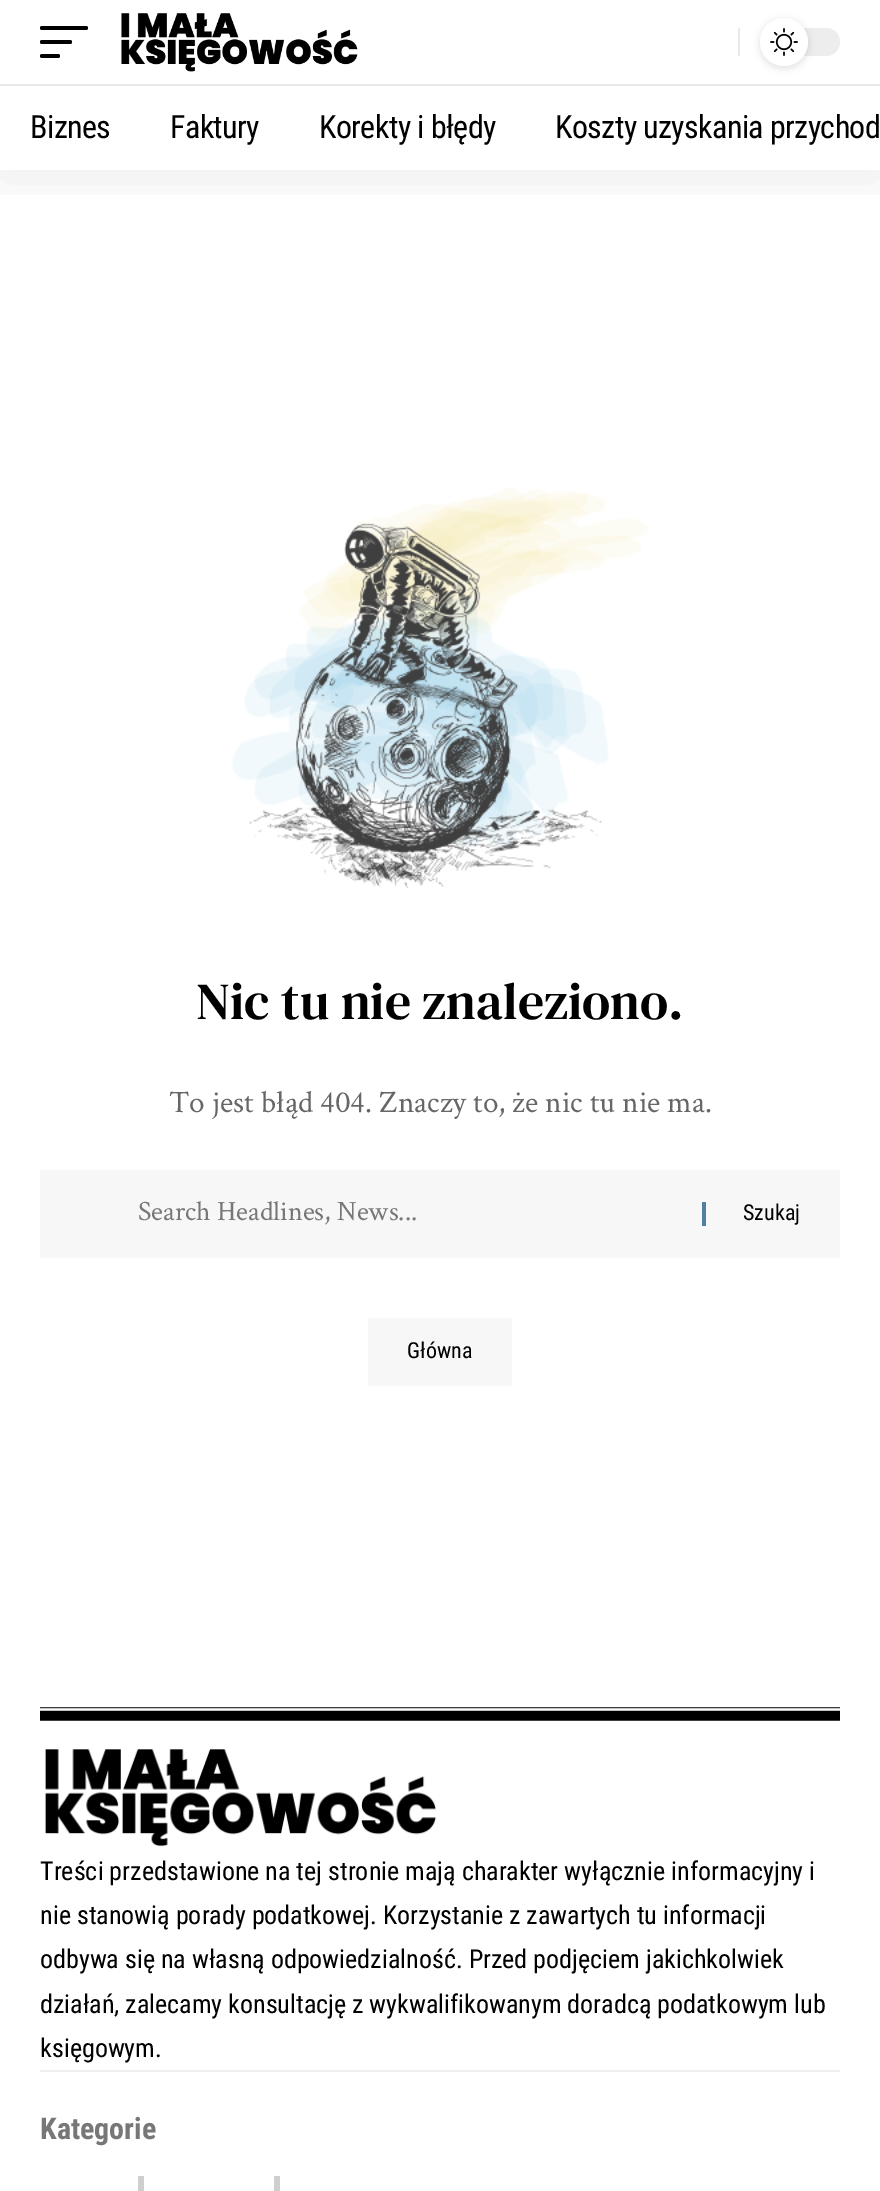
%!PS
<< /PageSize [880 2191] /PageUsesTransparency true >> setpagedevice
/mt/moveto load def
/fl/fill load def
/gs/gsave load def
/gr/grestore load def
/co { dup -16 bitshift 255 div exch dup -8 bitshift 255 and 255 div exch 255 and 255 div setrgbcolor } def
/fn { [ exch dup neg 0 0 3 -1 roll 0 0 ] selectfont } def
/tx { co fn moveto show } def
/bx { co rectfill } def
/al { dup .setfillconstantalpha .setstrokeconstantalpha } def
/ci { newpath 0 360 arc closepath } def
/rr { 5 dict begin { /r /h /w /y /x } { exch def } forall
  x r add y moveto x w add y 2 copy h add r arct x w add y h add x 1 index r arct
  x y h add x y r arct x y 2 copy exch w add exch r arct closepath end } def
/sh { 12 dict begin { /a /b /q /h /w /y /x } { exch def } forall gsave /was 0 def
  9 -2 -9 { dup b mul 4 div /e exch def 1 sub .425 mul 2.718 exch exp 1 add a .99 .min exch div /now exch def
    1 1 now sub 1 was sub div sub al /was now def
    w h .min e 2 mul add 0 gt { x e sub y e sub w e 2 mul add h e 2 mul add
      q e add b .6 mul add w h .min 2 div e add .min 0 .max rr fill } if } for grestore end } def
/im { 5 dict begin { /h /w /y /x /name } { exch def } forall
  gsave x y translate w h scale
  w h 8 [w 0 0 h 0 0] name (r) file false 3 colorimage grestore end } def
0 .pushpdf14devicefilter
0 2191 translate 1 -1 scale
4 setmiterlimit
0 0 880 2191 16#FFFFFF bx
gs
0 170 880 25 rectclip
16#000000 co
0 8 880 170 0 30 .07 sh
gr
16#000000 co
40 26 48 4 2 rr fl
40 40 32 4 2 rr fl
40 54 20 4 2 rr fl
(media/1.raw) 121 13 237 59 im
738 28 2 28 16#EAEAEA bx
16#EDEDED co
760 28 80 28 14 rr fl
16#000000 co
760 20 48 48 24 4 .12 sh
16#FFFFFF co
784 42 24 ci fl
(media/2.raw) 770 28 28 28 im
0 84 880 2 16#EAEAEA bx
(media/3.raw) 232 488 416 400 im
40 1170 800 88 16#F7F7F7 bx
702 1202 4 24 16#5280A0 bx
368 1318 144 68 16#F7F7F7 bx
(media/4.raw) 40 1707 800 14 im
(media/5.raw) 45 1749 392 98 im
40 2070 800 2 16#EFEFEF bx
138 2176 6 15 16#CFCFCF bx
274 2176 6 15 16#CFCFCF bx
/RobotoCondensed-Regular 32 fn
16#000000 co
30 138 mt -.6 0 (Biznes) ashow
170 138 mt -.6 0 (Faktury) ashow
319 138 mt -.6 0 (Korekty i błędy) ashow
555 138 mt -.6 0 (Koszty uzyskania przychod) ashow
(Nic tu nie znaleziono.) 196 1019 /DMSerifText-Regular 52 16#000000 tx
(To jest błąd 404. Znaczy to, że nic tu nie ma.) 169 1112 /CrimsonText-Regular 31.25 16#666666 tx
(Search Headlines, News...) 138 1220 /CrimsonText-Regular 28 16#777777 tx
(Szukaj) 743 1220 /RobotoCondensed-Regular 22 16#000000 tx
(Główna) 407 1358 /RobotoCondensed-Regular 22 16#000000 tx
(Treści przedstawione na tej stronie mają charakter wyłącznie informacyjny i) 40 1880 /RobotoCondensed-Regular 26 16#000000 tx
(nie stanowią porady podatkowej. Korzystanie z zawartych tu informacji) 40 1924 /RobotoCondensed-Regular 26 16#000000 tx
(odbywa się na własną odpowiedzialność. Przed podjęciem jakichkolwiek) 40 1968 /RobotoCondensed-Regular 26 16#000000 tx
(działań, zalecamy konsultację z wykwalifikowanym doradcą podatkowym lub) 40 2013 /RobotoCondensed-Regular 26 16#000000 tx
(księgowym.) 40 2057 /RobotoCondensed-Regular 26 16#000000 tx
(Kategorie) 40 2139 /RobotoCondensed-Bold 30 16#777777 tx
.poppdf14devicefilter showpage
